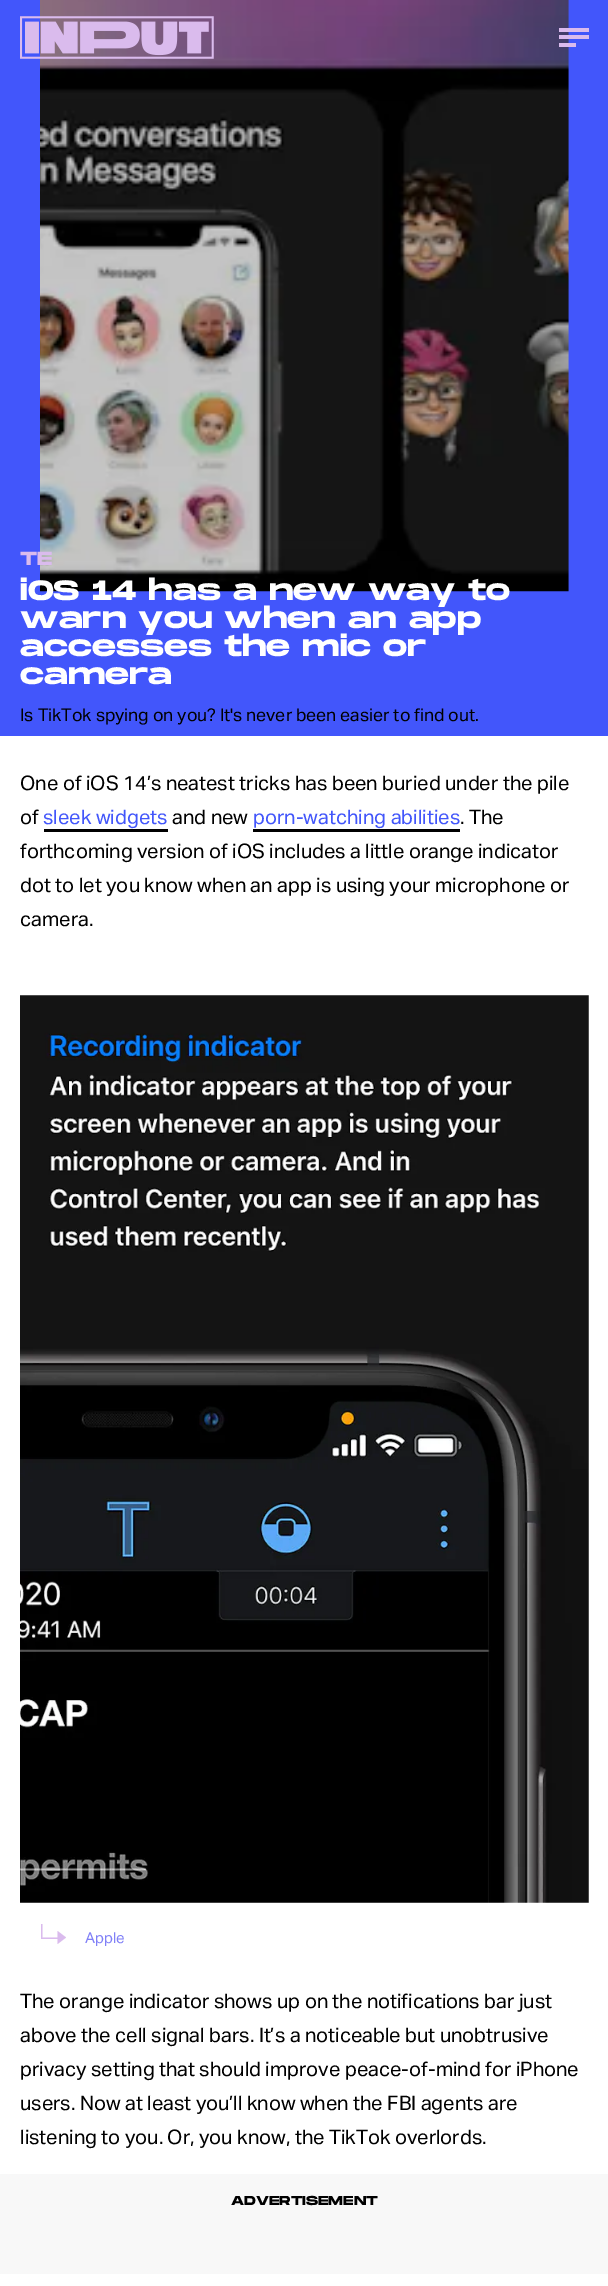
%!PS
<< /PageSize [608 2286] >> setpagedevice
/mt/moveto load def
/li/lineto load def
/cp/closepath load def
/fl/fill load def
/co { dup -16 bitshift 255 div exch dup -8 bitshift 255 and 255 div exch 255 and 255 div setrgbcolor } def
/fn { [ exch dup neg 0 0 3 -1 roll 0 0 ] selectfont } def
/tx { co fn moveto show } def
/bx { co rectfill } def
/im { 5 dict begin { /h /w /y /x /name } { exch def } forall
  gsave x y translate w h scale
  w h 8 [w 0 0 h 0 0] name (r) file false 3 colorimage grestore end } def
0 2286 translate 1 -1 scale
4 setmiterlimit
0 0 608 2286 16#FFFFFF bx
0 0 608 736 16#4256FB bx
(media/2.raw) 40 0 529 592 im
(media/1.raw) 20 16 194 43 im
559 28 30 4 16#DABBED bx
559 35 30 4 16#DABBED bx
559 43 17 4 16#DABBED bx
44 829 124 3 16#000000 bx
253 829 207 3 16#000000 bx
(media/3.raw) 20 995 569 908 im
16#DABBED co
41 1924 mt 41 1939 li 58 1939 li 58 1937.5 li 42.5 1937.5 li 42.5 1924 li cp fl
57.5 1944 mt 57.5 1931 li 66 1937.5 li cp fl
0 2174 608 100 16#F8F8F8 bx
(TE) 20 565 /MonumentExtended-Bold 19 16#DABBED tx
(iOS 14 has a new way to) 20 600 /MonumentExtended-Bold 28 16#FFFFFF tx
(warn you when an app) 20 628 /MonumentExtended-Bold 28 16#FFFFFF tx
(accesses the mic or) 20 656 /MonumentExtended-Bold 28 16#FFFFFF tx
(camera) 20 684 /MonumentExtended-Bold 28 16#FFFFFF tx
(Is TikTok spying on you? It's never been easier to find out.) 20 721 /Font-Regular 17.6 16#000000 tx
(One of iOS 14’s neatest tricks has been buried under the pile) 20 790 /Font-Regular 20 16#000000 tx
(of) 20 824 /Font-Regular 20 16#000000 tx
(sleek widgets) 43 824 /Font-Regular 20 16#4256FB tx
(and new) 172 824 /Font-Regular 20 16#000000 tx
(porn-watching abilities) 253 824 /Font-Regular 20 16#4256FB tx
(. The) 460 824 /Font-Regular 20 16#000000 tx
(forthcoming version of iOS includes a little orange indicator) 20 858 /Font-Regular 20 16#000000 tx
(dot to let you know when an app is using your microphone or) 20 892 /Font-Regular 20 16#000000 tx
(camera.) 20 926 /Font-Regular 20 16#000000 tx
(Apple) 85 1943 /Font-Regular 15 16#8080F7 tx
(The orange indicator shows up on the notifications bar just) 20 2008 /Font-Regular 20 16#000000 tx
(above the cell signal bars. It’s a noticeable but unobtrusive) 20 2042 /Font-Regular 20 16#000000 tx
(privacy setting that should improve peace-of-mind for iPhone) 20 2076 /Font-Regular 20 16#000000 tx
(users. Now at least you’ll know when the FBI agents are) 20 2110 /Font-Regular 20 16#000000 tx
(listening to you. Or, you know, the TikTok overlords.) 20 2144 /Font-Regular 20 16#000000 tx
(ADVERTISEMENT) 231 2205 /MonumentExtended-Bold 13 16#000000 tx
showpage
